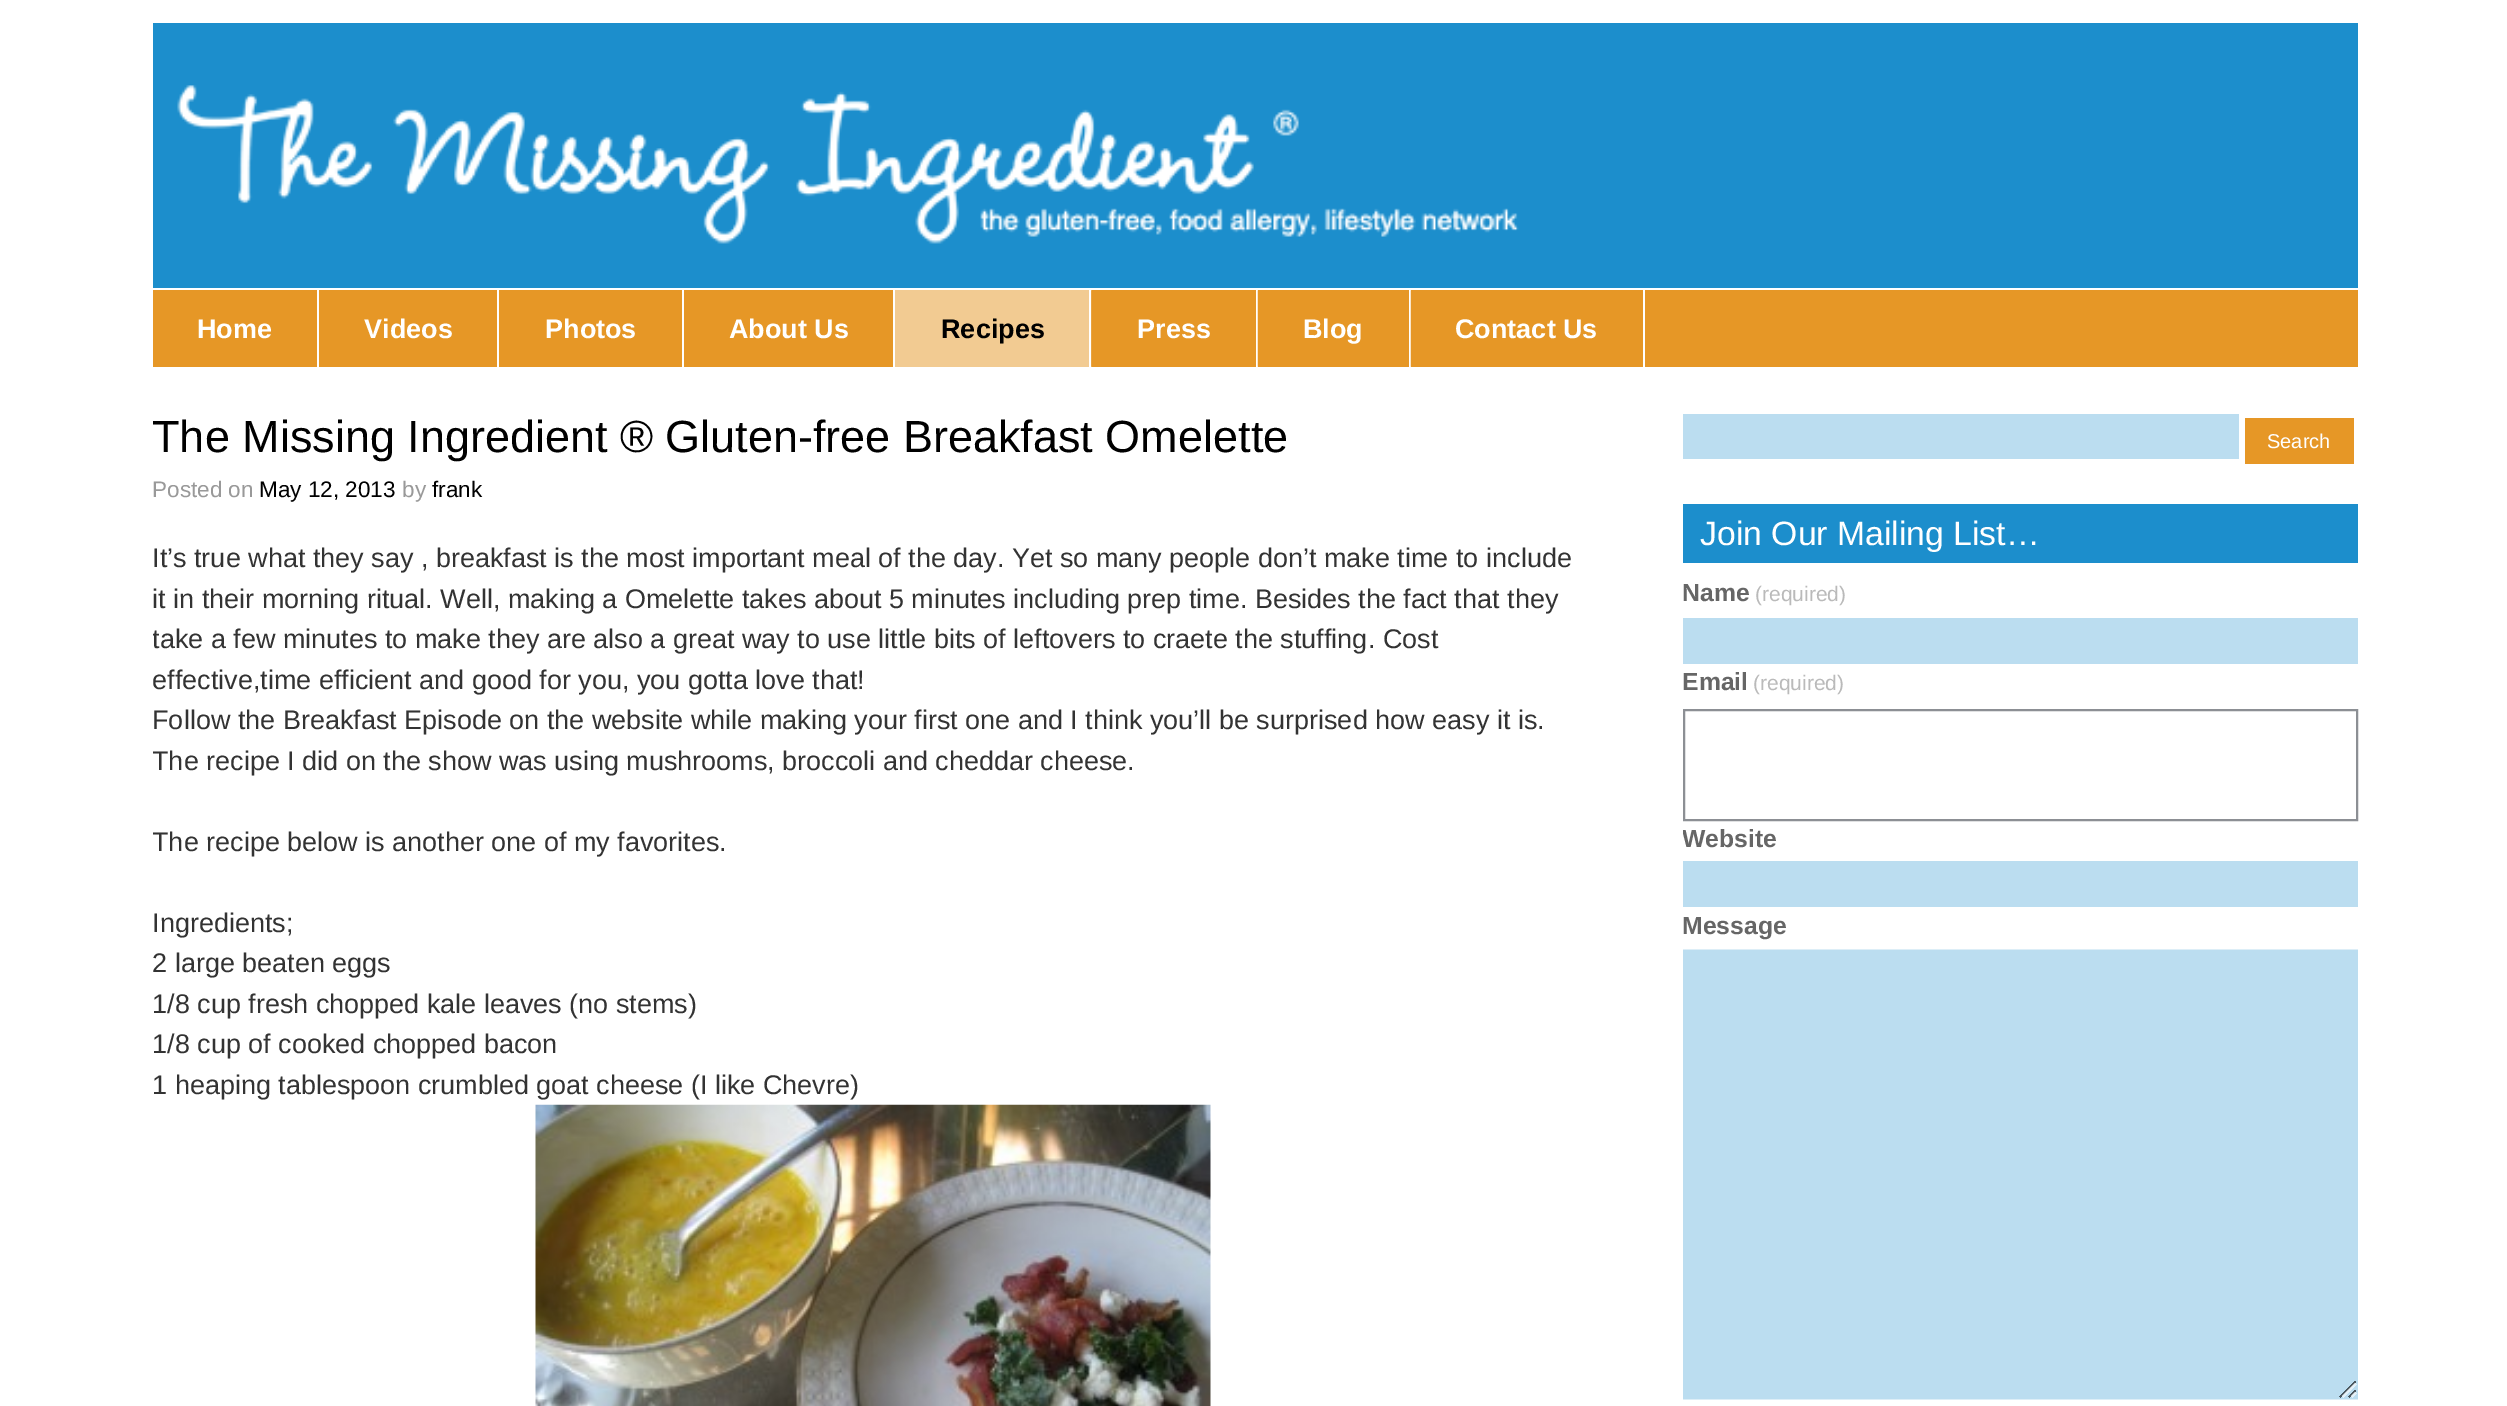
%!PS
<< /PageSize [2507 1406] >> setpagedevice
/gs/gsave load def
/gr/grestore load def
/lw/setlinewidth load def
/co { dup -16 bitshift 255 div exch dup -8 bitshift 255 and 255 div exch 255 and 255 div setrgbcolor } def
/fn { [ exch dup neg 0 0 3 -1 roll 0 0 ] selectfont } def
/tx { co fn moveto show } def
/bx { co rectfill } def
/im { 5 dict begin { /h /w /y /x /name } { exch def } forall
  gsave x y translate w h scale
  w h 8 [w 0 0 h 0 0] name (r) file false 3 colorimage grestore end } def
0 1406 translate 1 -1 scale
4 setmiterlimit
0 0 2507 1406 16#FFFFFF bx
153 23 2205 265 16#1C8ECC bx
(media/1.raw) 177 85 1342 159 im
153 290 2205 77 16#E69726 bx
317 290 2 77 16#FFFFFF bx
497 290 2 77 16#FFFFFF bx
682 290 2 77 16#FFFFFF bx
893 290 2 77 16#FFFFFF bx
895 290 197 77 16#F2CB92 bx
1089 290 2 77 16#FFFFFF bx
(media/2.raw) 1091 290 1 77 im
1256 290 2 77 16#FFFFFF bx
(media/3.raw) 1257 290 1 77 im
1409 290 2 77 16#FFFFFF bx
(media/3.raw) 1410 290 1 77 im
1643 290 2 77 16#FFFFFF bx
(media/4.raw) 535 1104 676 302 im
1683 414 556 45 16#BBDDF0 bx
2245 418 109 46 16#E69726 bx
1683 504 675 59 16#1C8ECC bx
1683 618 675 46 16#BBDDF0 bx
16#8C8F94 co
2 lw
1684 710 673 110 rectstroke
1683 861 675 46 16#BBDDF0 bx
(media/5.raw) 1683 949 675 451 im
(Home) 197 338 /LiberationSans-Bold 27 16#FFFFFF tx
(Videos) 364 338 /LiberationSans-Bold 27 16#FFFFFF tx
(Photos) 545 338 /LiberationSans-Bold 27 16#FFFFFF tx
(About Us) 729 338 /LiberationSans-Bold 27 16#FFFFFF tx
(Recipes) 941 338 /LiberationSans-Bold 27 16#000000 tx
(Press) 1137 338 /LiberationSans-Bold 27 16#FFFFFF tx
(Blog) 1303 338 /LiberationSans-Bold 27 16#FFFFFF tx
(Contact Us) 1455 338 /LiberationSans-Bold 27 16#FFFFFF tx
gs
153 369 2205 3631 rectclip
(The Missing Ingredient ® Gluten-free Breakfast Omelette) 152 452 /LiberationSans-Regular 45 16#000000 tx
gr
(Posted on) 152 497 /LiberationSans-Regular 22.5 16#999999 tx
(May 12, 2013) 259 497 /LiberationSans-Regular 22.5 16#000000 tx
(by) 402 497 /LiberationSans-Regular 22.5 16#999999 tx
(frank) 432 497 /LiberationSans-Regular 22.5 16#000000 tx
(It’s true what they say , breakfast is the most important meal of the day. Yet so many people don’t make time to include) 152 567 /LiberationSans-Regular 27 16#333333 tx
(it in their morning ritual. Well, making a Omelette takes about 5 minutes including prep time. Besides the fact that they) 152 608 /LiberationSans-Regular 27 16#333333 tx
gs
153 369 2205 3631 rectclip
(take a few minutes to make they are also a great way to use little bits of leftovers to craete the stuffing. Cost) 152 648 /LiberationSans-Regular 27 16#333333 tx
gr
(effective,time efficient and good for you, you gotta love that!) 152 689 /LiberationSans-Regular 27 16#333333 tx
(Follow the Breakfast Episode on the website while making your first one and I think you’ll be surprised how easy it is.) 152 729 /LiberationSans-Regular 27 16#333333 tx
gs
153 369 2205 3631 rectclip
(The recipe I did on the show was using mushrooms, broccoli and cheddar cheese.) 152 770 /LiberationSans-Regular 27 16#333333 tx
(The recipe below is another one of my favorites.) 152 851 /LiberationSans-Regular 27 16#333333 tx
gr
(Ingredients;) 152 932 /LiberationSans-Regular 27 16#333333 tx
(2 large beaten eggs) 152 972 /LiberationSans-Regular 27 16#333333 tx
(1/8 cup fresh chopped kale leaves \(no stems\)) 152 1013 /LiberationSans-Regular 27 16#333333 tx
(1/8 cup of cooked chopped bacon) 152 1053 /LiberationSans-Regular 27 16#333333 tx
(1 heaping tablespoon crumbled goat cheese \(I like Chevre\)) 152 1094 /LiberationSans-Regular 27 16#333333 tx
(Search) 2267 448 /LiberationSans-Regular 20 16#FFFFFF tx
(Join Our Mailing List…) 1700 545 /LiberationSans-Regular 33.75 16#FFFFFF tx
(Name) 1682 601 /LiberationSans-Bold 24.75 16#666666 tx
(\(required\)) 1755 601 /LiberationSans-Regular 21 16#BABABA tx
(Email) 1682 690 /LiberationSans-Bold 24.75 16#666666 tx
(\(required\)) 1753 690 /LiberationSans-Regular 21 16#BABABA tx
gs
1683 414 675 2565 rectclip
(Website) 1682 847 /LiberationSans-Bold 24.75 16#666666 tx
gr
(Message) 1682 934 /LiberationSans-Bold 24.75 16#666666 tx
showpage
